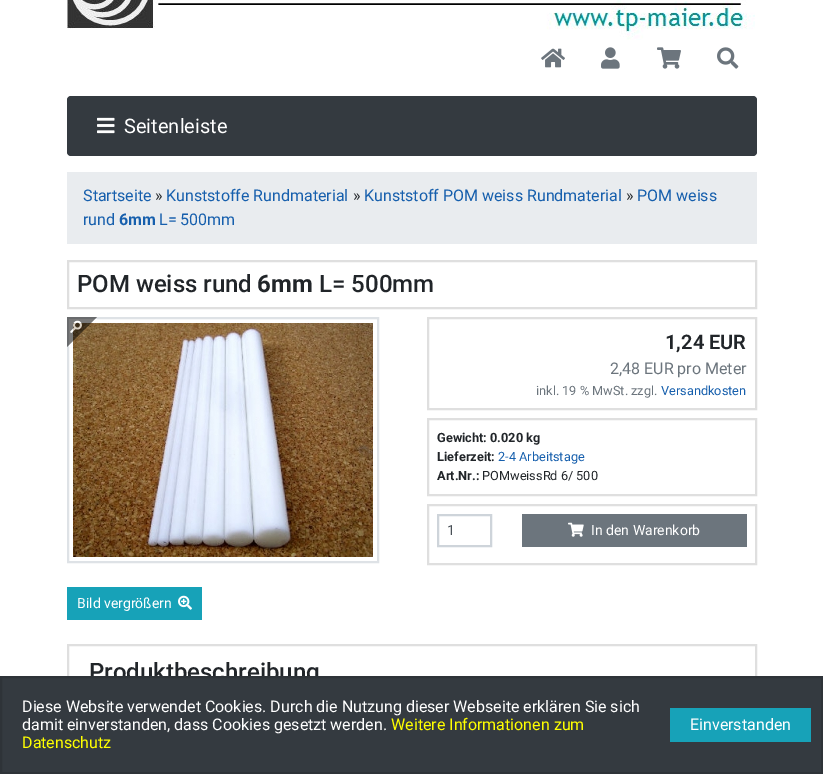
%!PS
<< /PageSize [823 774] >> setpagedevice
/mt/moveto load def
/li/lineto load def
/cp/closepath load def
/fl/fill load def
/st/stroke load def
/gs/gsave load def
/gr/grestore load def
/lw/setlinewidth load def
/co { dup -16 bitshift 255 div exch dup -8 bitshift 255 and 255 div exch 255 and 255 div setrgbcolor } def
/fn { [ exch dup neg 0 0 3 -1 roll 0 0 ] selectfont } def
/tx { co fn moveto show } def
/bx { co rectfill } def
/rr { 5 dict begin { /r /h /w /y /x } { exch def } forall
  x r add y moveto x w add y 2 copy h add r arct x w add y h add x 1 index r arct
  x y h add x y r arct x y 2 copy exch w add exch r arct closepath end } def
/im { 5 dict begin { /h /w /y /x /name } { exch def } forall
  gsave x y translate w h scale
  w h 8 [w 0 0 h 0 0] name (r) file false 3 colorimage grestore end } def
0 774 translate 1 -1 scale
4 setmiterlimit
0 0 823 774 16#FFFFFF bx
(media/1.raw) 67 0 688 40 im
(media/2.raw) 541 48 24 20 im
(media/3.raw) 601 47 19 22 im
(media/4.raw) 657 47 24 22 im
(media/5.raw) 717 47 22 22 im
16#343A40 co
67 96 690 60 4 rr fl
(media/6.raw) 97 117 18 17 im
67 172 690 72 16#E9ECEF bx
16#DFDFDF co
2 lw
68 261 688 47 rectstroke
428 318 328 91 rectstroke
428 419 328 76 rectstroke
428 505 328 59 rectstroke
16#CED4DA co
438 515 53 31 rectstroke
522 514 225 33 16#6C757D bx
(media/7.raw) 568 522 16 15 im
16#DEE2E6 co
68 318 310 244 rectstroke
(media/9.raw) 73 323 300 234 im
(media/8.raw) 67 317 30 30 im
67 587 135 33 16#17A2B8 bx
(media/10.raw) 178 595 14 15 im
16#DFDFDF co
68 645 688 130 rectstroke
(Seitenleiste) 124 133 /Roboto-Regular 20 16#FFFFFF tx
(Startseite) 83 201 /Roboto-Regular 16 16#165FAD tx
(») 155 201 /Roboto-Regular 16 16#212529 tx
(Kunststoffe Rundmaterial) 166 201 /Roboto-Regular 16 16#165FAD tx
(») 353 201 /Roboto-Regular 16 16#212529 tx
(Kunststoff POM weiss Rundmaterial) 364 201 /Roboto-Regular 16 16#165FAD tx
(») 626 201 /Roboto-Regular 16 16#212529 tx
(POM weiss) 637 201 /Roboto-Regular 16 16#165FAD tx
(rund) 83 225 /Roboto-Regular 16 16#165FAD tx
(6mm) 119 225 /Roboto-Bold 16 16#165FAD tx
(L= 500mm) 159 225 /Roboto-Regular 16 16#165FAD tx
(POM weiss rund) 77 292 /Roboto-Medium 24 16#212529 tx
(6mm) 257 292 /Roboto-Bold 24 16#212529 tx
(L= 500mm) 319 292 /Roboto-Medium 24 16#212529 tx
(1,24 EUR) 665 349 /Roboto-SemiBold 20 16#212529 tx
(2,48 EUR pro Meter) 610 374 /Roboto-Regular 16 16#6C757D tx
(inkl. 19 % MwSt. zzgl.) 536 395 /Roboto-Regular 12.75 16#6C757D tx
(Versandkosten) 661 395 /Roboto-Regular 12.75 16#165FAD tx
(Gewicht: 0.020 kg) 437 442 /Roboto-Bold 12.75 16#212529 tx
(Lieferzeit:) 437 461 /Roboto-Bold 12.75 16#212529 tx
(2-4 Arbeitstage) 498 461 /Roboto-Regular 12.75 16#165FAD tx
(Art.Nr.:) 437 480 /Roboto-Bold 12.75 16#212529 tx
(POMweissRd 6/ 500) 482 480 /Roboto-Regular 12.75 16#212529 tx
(1) 447 535 /Roboto-Regular 14 16#495057 tx
(In den Warenkorb) 591 535 /Roboto-Regular 14 16#FFFFFF tx
(Bild vergrößern) 77 608 /Roboto-Regular 14 16#FFFFFF tx
(Produktbeschreibung) 89 680 /Roboto-Medium 24 16#212529 tx
16#343A40 co
1 677 mt 822 677 li 822 773 li 1 773 li cp gs fl gr
16#2E3338 co
st
(Diese Website verwendet Cookies. Durch die Nutzung dieser Webseite erklären Sie sich) 22 712 /Roboto-Regular 16 16#FFFFFF tx
(damit einverstanden, dass Cookies gesetzt werden.) 22 730 /Roboto-Regular 16 16#FFFFFF tx
(Weitere Informationen zum) 391 730 /Roboto-Regular 16 16#FFFF00 tx
(Datenschutz) 22 748 /Roboto-Regular 16 16#FFFF00 tx
670 708 141 34 16#17A2B8 bx
(Einverstanden) 690 730 /Roboto-Regular 16 16#FFFFFF tx
showpage
